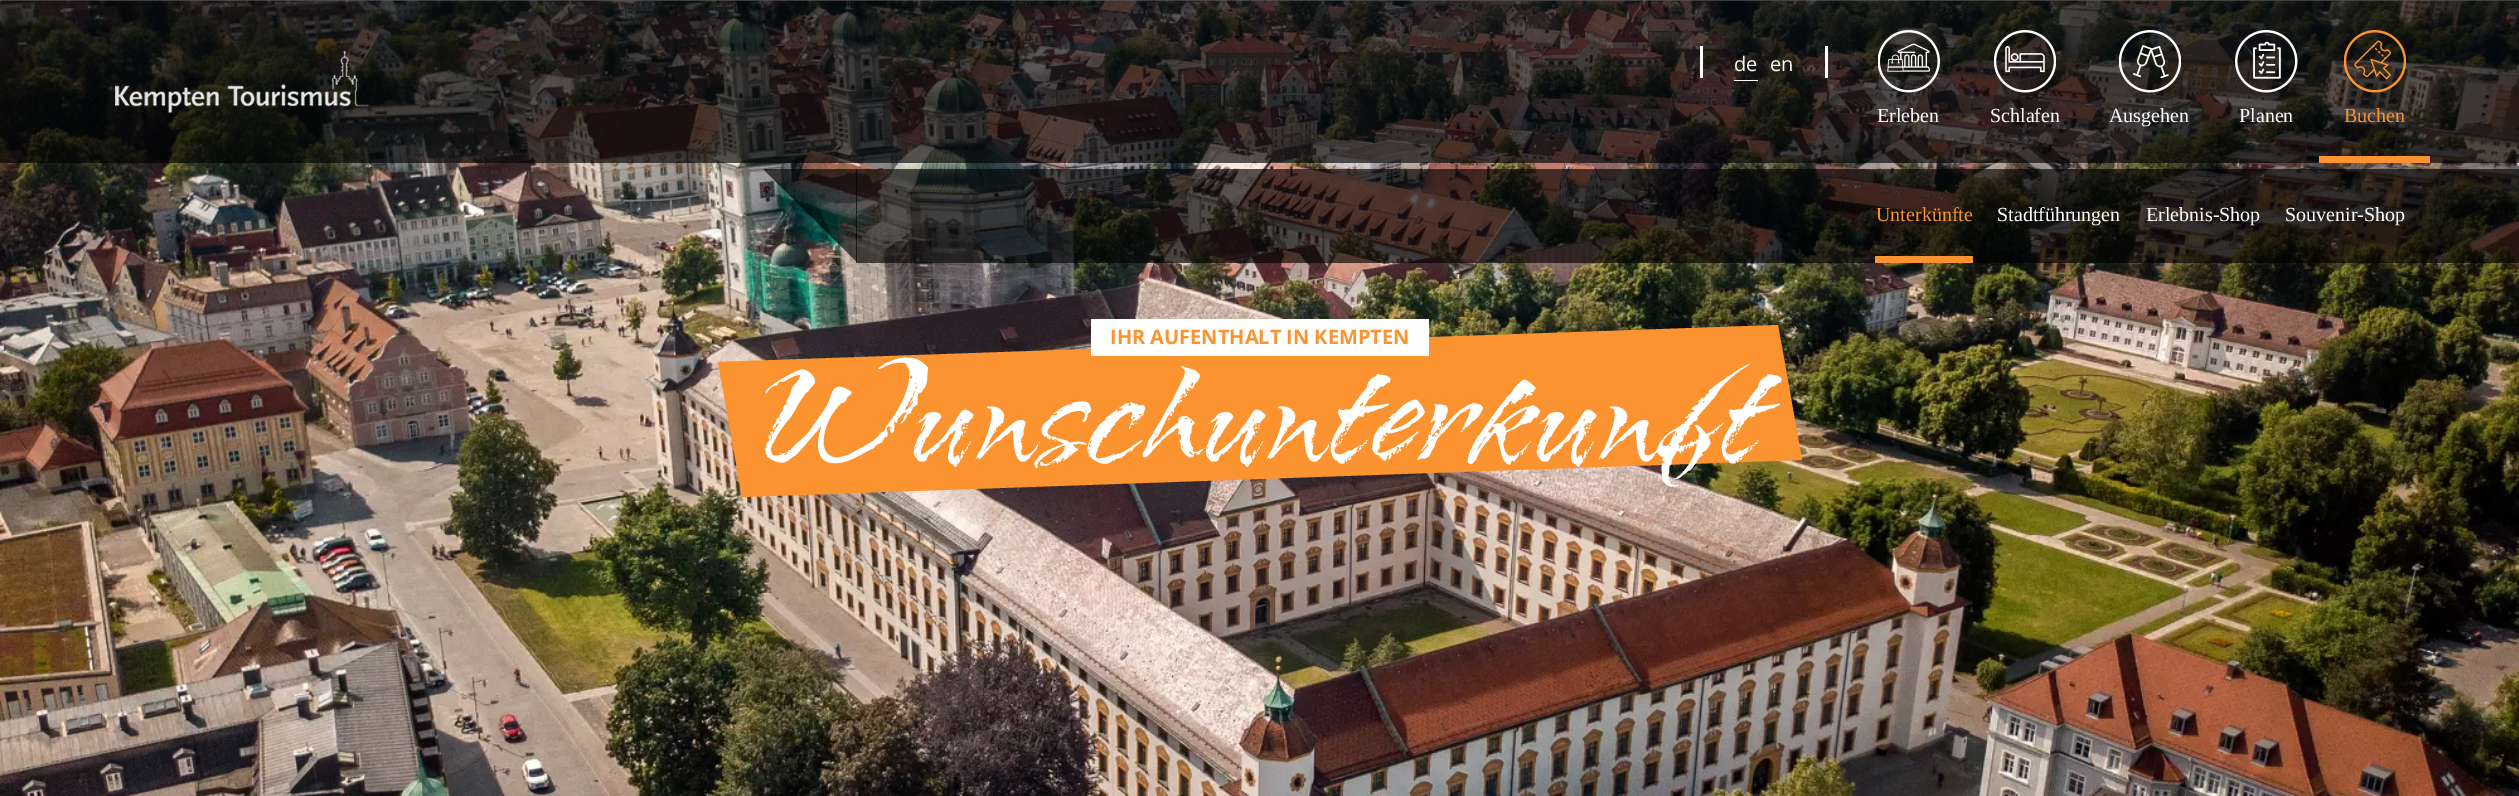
%!PS
<< /PageSize [2519 796] /PageUsesTransparency true >> setpagedevice
/mt/moveto load def
/li/lineto load def
/cp/closepath load def
/fl/fill load def
/co { dup -16 bitshift 255 div exch dup -8 bitshift 255 and 255 div exch 255 and 255 div setrgbcolor } def
/fn { [ exch dup neg 0 0 3 -1 roll 0 0 ] selectfont } def
/tx { co fn moveto show } def
/bx { co rectfill } def
/al { dup .setfillconstantalpha .setstrokeconstantalpha } def
/im { 5 dict begin { /h /w /y /x /name } { exch def } forall
  gsave x y translate w h scale
  w h 8 [w 0 0 h 0 0] name (r) file false 3 colorimage grestore end } def
0 .pushpdf14devicefilter
0 796 translate 1 -1 scale
4 setmiterlimit
0 0 2519 796 16#FFFFFF bx
(media/7.raw) 0 0 2519 796 im
0.65 al
0 0 2519 163 16#000000 bx
1 al
(media/1.raw) 115 51 254 62 im
1700 46 3 32 16#FFFFFF bx
1734 80 24 1 16#FFFFFF bx
1825 46 3 32 16#FFFFFF bx
(media/2.raw) 1994 30 62 63 im
2319 156 111 7 16#FA9330 bx
(media/3.raw) 2344 30 62 63 im
0.65 al
856 169 1663 94 16#000000 bx
1 al
1875 256 98 7 16#FA9330 bx
(media/4.raw) 1878 30 62 63 im
(media/5.raw) 2119 30 62 63 im
(media/6.raw) 2235 30 63 63 im
0.65 al
16#000000 co
857 169 mt 857 262 li 763 169 li cp fl
1 al
16#FA9330 co
718 362 mt 1778 325 li 1802 460 li 742 497 li cp fl
1091 319 338 37 16#FFFFFF bx
(de) 1734 71 /OpenSans-Regular 20 16#FFFFFF tx
(en) 1770 71 /OpenSans-Regular 20 16#FFFFFF tx
(Schlafen) 1990 122 /LiberationSerif-Regular 20 16#FFFFFF tx
(Buchen) 2344 122 /LiberationSerif-Regular 20 16#FA9330 tx
(Unterkünfte) 1876 221 /LiberationSerif-Regular 20 16#FA9330 tx
(Stadtführungen) 1997 221 /LiberationSerif-Regular 20 16#FFFFFF tx
(Erlebnis-Shop) 2146 221 /LiberationSerif-Regular 20 16#FFFFFF tx
(Souvenir-Shop) 2285 221 /LiberationSerif-Regular 20 16#FFFFFF tx
(Erleben) 1877 122 /LiberationSerif-Regular 20 16#FFFFFF tx
(Ausgehen) 2109 122 /LiberationSerif-Regular 20 16#FFFFFF tx
(Planen) 2239 122 /LiberationSerif-Regular 20 16#FFFFFF tx
(IHR AUFENTHALT IN KEMPTEN) 1110 344 /OpenSans-Bold 20 16#FA9330 tx
(Wunschunterkunft) 758 458 /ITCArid-Regular 125.75 16#FFFFFF tx
.poppdf14devicefilter showpage
